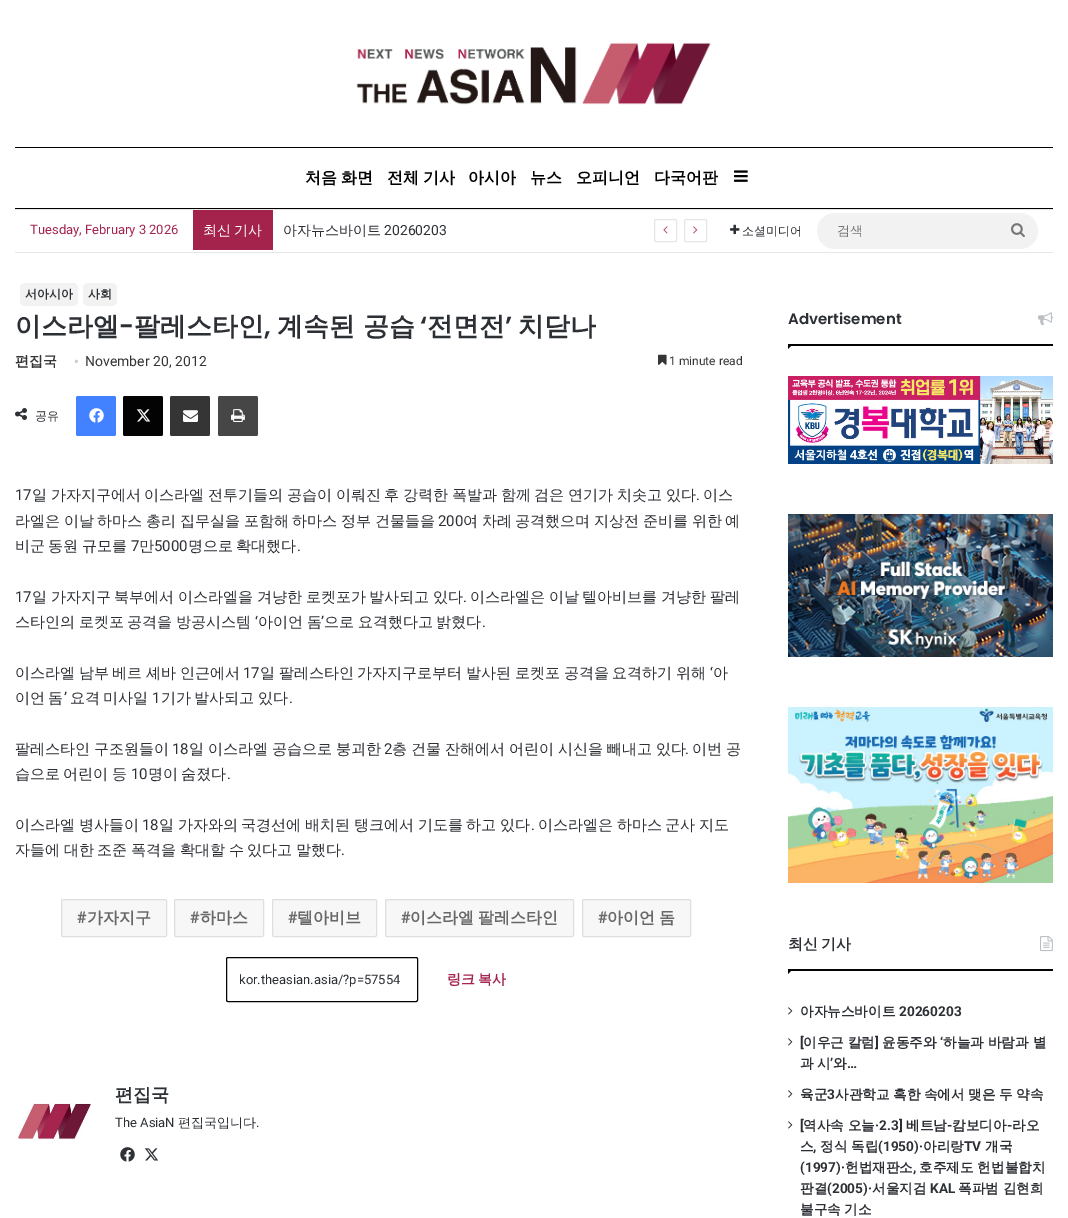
%!PS
<< /PageSize [1068 1218] >> setpagedevice
/mt/moveto load def
/li/lineto load def
/cp/closepath load def
/fl/fill load def
/st/stroke load def
/gs/gsave load def
/gr/grestore load def
/co { dup -16 bitshift 255 div exch dup -8 bitshift 255 and 255 div exch 255 and 255 div setrgbcolor } def
/fn { [ exch dup neg 0 0 3 -1 roll 0 0 ] selectfont } def
/tx { co fn moveto show } def
/bx { co rectfill } def
/rr { 5 dict begin { /r /h /w /y /x } { exch def } forall
  x r add y moveto x w add y 2 copy h add r arct x w add y h add x 1 index r arct
  x y h add x y r arct x y 2 copy exch w add exch r arct closepath end } def
/im { 5 dict begin { /h /w /y /x /name } { exch def } forall
  gsave x y translate w h scale
  w h 8 [w 0 0 h 0 0] name (r) file false 3 colorimage grestore end } def
0 1218 translate 1 -1 scale
4 setmiterlimit
0 0 1068 1218 16#FFFFFF bx
(media/1.raw) 356 42 355 63 im
15 147 1038 1 16#000000 bx
15 208 1038 1 16#000000 bx
(media/2.raw) 734 170 14 12 im
15 209 1038 1 16#E6E6E6 bx
15 252 1038 1 16#E6E6E6 bx
193 210 80 40 16#A4234C bx
16#E6E6E6 co
654.5 219.5 22 22 1.5 rr st
(media/3.raw) 663 226 5 8 im
684.5 219.5 22 22 1.5 rr st
(media/4.raw) 693 226 5 8 im
(media/5.raw) 730 224 10 11 im
16#F2F2F2 co
817 213 221 36 18 rr fl
(media/6.raw) 1011 223 14 14 im
20 283 58 23 5 rr fl
83 283 34 23 5 rr fl
(media/7.raw) 658 354 9 11 im
(media/8.raw) 15 408 12 12 im
16#4281FF co
76 396 40 40 2 rr fl
(media/9.raw) 89 408 15 15 im
16#030303 co
123 396 40 40 2 rr fl
(media/10.raw) 136 409 15 13 im
16#353535 co
170 396 40 40 2 rr fl
(media/11.raw) 183 410 15 12 im
16#464646 co
218 396 40 40 2 rr fl
(media/12.raw) 231 409 14 13 im
16#F7F7F7 co
61.5 899.5 105 37 1.5 rr gs fl gr
16#DFDFDF co
st
16#F7F7F7 co
174.5 899.5 89 37 1.5 rr gs fl gr
16#DFDFDF co
st
16#F7F7F7 co
272.5 899.5 104 37 1.5 rr gs fl gr
16#DFDFDF co
st
16#F7F7F7 co
385.5 899.5 188 37 1.5 rr gs fl gr
16#DFDFDF co
st
16#F7F7F7 co
582.5 899.5 108 37 1.5 rr gs fl gr
16#DFDFDF co
st
16#030303 co
226.5 957.5 191 44 1.5 rr st
(media/13.raw) 18 1103 73 37 im
(media/14.raw) 120 1147 15 15 im
(media/15.raw) 144 1148 15 13 im
788 344 265 2 16#030303 bx
(media/16.raw) 1038 312 15 13 im
788 344 mt 793 344 li 788 349 li cp fl
(media/17.raw) 788 376 265 88 im
(media/18.raw) 788 514 265 143 im
(media/19.raw) 788 707 265 176 im
788 969 265 2 16#030303 bx
(media/20.raw) 1040 936 13 16 im
788 969 mt 793 969 li 788 974 li cp fl
(media/21.raw) 788 1007 5 8 im
(media/21.raw) 788 1038 5 8 im
(media/21.raw) 788 1090 5 8 im
(media/21.raw) 788 1121 5 8 im
/WenQuanYiZenHei-Bold 16 fn
16#000000 co
305 183 mt -1 0 32 (처음 화면) widthshow
387 183 mt -1 0 32 (전체 기사) widthshow
(아시아) 468 183 /WenQuanYiZenHei-Bold 16 16#000000 tx
(뉴스) 530 183 /WenQuanYiZenHei-Bold 16 16#000000 tx
(오피니언) 576 183 /WenQuanYiZenHei-Bold 16 16#000000 tx
(다국어판) 654 183 /WenQuanYiZenHei-Bold 16 16#000000 tx
(Tuesday, February 3 2026) 30 234 /Roboto-Regular 13 16#A5254E tx
/WenQuanYiZenHei-Medium 14 fn
16#FFFFFF co
203 235 mt -.75 0 32 (최신 기사) widthshow
(아자뉴스바이트) 283 235 /WenQuanYiZenHei-Medium 14 16#2C2F34 tx
(20260203) 384 235 /Roboto-Regular 14 16#2C2F34 tx
(소셜미디어) 742 235 /WenQuanYiZenHei-Medium 12 16#2C2F34 tx
(검색) 837 235 /WenQuanYiZenHei-Medium 13 16#757575 tx
(서아시아) 25 298 /WenQuanYiZenHei-Bold 12 16#2C2F34 tx
(사회) 88 298 /WenQuanYiZenHei-Bold 12 16#2C2F34 tx
(이스라엘) 15 335 /WenQuanYiZenHei-Bold 26 16#2C2F34 tx
(팔레스타인) 134 335 /WenQuanYiZenHei-Bold 26 16#2C2F34 tx
(계속된 공습) 277 335 /WenQuanYiZenHei-Bold 26 16#2C2F34 tx
(‘) 420 335 /Poppins-SemiBold 26 16#2C2F34 tx
(전면전) 427 335 /WenQuanYiZenHei-Bold 26 16#2C2F34 tx
(’) 505 335 /Poppins-SemiBold 26 16#2C2F34 tx
(치닫나) 518 335 /WenQuanYiZenHei-Bold 26 16#2C2F34 tx
(-) 119 335 /Poppins-SemiBold 26 16#2C2F34 tx
(,) 264 335 /Poppins-SemiBold 26 16#2C2F34 tx
(편집국) 15 366 /WenQuanYiZenHei-Bold 14 16#353535 tx
(•) 74 366 /LiberationSerif-Regular 14 16#CDCDCD tx
(November 20, 2012) 85 366 /Roboto-Regular 14 16#353535 tx
(1 minute read) 669 365 /Roboto-Regular 12 16#353535 tx
(공유) 35 420 /WenQuanYiZenHei-Medium 12 16#2C2F34 tx
(17) 15 500 /Roboto-Regular 15 16#2C2F34 tx
/WenQuanYiZenHei-Medium 15 fn
32 500 mt -.75 0 32 (일 가자지구에서 이스라엘 전투기들의 공습이 이뤄진 후 강력한 폭발과 함께 검은 연기가 치솟고 있다) widthshow
(.) 696 500 /Roboto-Regular 15 16#2C2F34 tx
(이스) 703 500 /WenQuanYiZenHei-Medium 15 16#2C2F34 tx
15 526 mt -.75 0 32 (라엘은 이날 하마스 총리 집무실을 포함해 하마스 정부 건물들을) widthshow
(200) 438 526 /Roboto-Regular 15 16#2C2F34 tx
/WenQuanYiZenHei-Medium 15 fn
463 526 mt -.75 0 32 (여 차례 공격했으며 지상전 준비를 위한 예) widthshow
15 551 mt -1 0 32 (비군 동원 규모를) widthshow
(7) 131 551 /Roboto-Regular 15 16#2C2F34 tx
(만) 139 551 /WenQuanYiZenHei-Medium 15 16#2C2F34 tx
(5000) 154 551 /Roboto-Regular 15 16#2C2F34 tx
/WenQuanYiZenHei-Medium 15 fn
188 551 mt -1 0 32 (명으로 확대했다) widthshow
(.) 297 551 /Roboto-Regular 15 16#2C2F34 tx
(17) 15 602 /Roboto-Regular 15 16#2C2F34 tx
/WenQuanYiZenHei-Medium 15 fn
32 602 mt -.75 0 32 (일 가자지구 북부에서 이스라엘을 겨냥한 로켓포가 발사되고 있다) widthshow
(.) 463 602 /Roboto-Regular 15 16#2C2F34 tx
/WenQuanYiZenHei-Medium 15 fn
470 602 mt -.75 0 32 (이스라엘은 이날 텔아비브를 겨냥한 팔레) widthshow
15 627 mt -.75 0 32 (스타인의 로켓포 공격을 방공시스템) widthshow
(‘) 255 627 /Roboto-Regular 15 16#2C2F34 tx
/WenQuanYiZenHei-Medium 15 fn
258 627 mt -.75 0 32 (아이언 돔) widthshow
(’) 321 627 /Roboto-Regular 15 16#2C2F34 tx
/WenQuanYiZenHei-Medium 15 fn
324 627 mt -.75 0 32 (으로 요격했다고 밝혔다) widthshow
(.) 482 627 /Roboto-Regular 15 16#2C2F34 tx
/WenQuanYiZenHei-Medium 15 fn
15 678 mt -.75 0 32 (이스라엘 남부 베르 셰바 인근에서) widthshow
(17) 243 678 /Roboto-Regular 15 16#2C2F34 tx
/WenQuanYiZenHei-Medium 15 fn
260 678 mt -.75 0 32 (일 팔레스타인 가자지구로부터 발사된 로켓포 공격을 요격하기 위해) widthshow
(‘) 710 678 /Roboto-Regular 15 16#2C2F34 tx
(아) 713 678 /WenQuanYiZenHei-Medium 15 16#2C2F34 tx
15 703 mt -1 0 32 (이언 돔) widthshow
(’) 64 703 /Roboto-Regular 15 16#2C2F34 tx
/WenQuanYiZenHei-Medium 15 fn
70 703 mt -1 0 32 (요격 미사일) widthshow
(1) 152 703 /Roboto-Regular 15 16#2C2F34 tx
/WenQuanYiZenHei-Medium 15 fn
161 703 mt -1 0 32 (기가 발사되고 있다) widthshow
(.) 289 703 /Roboto-Regular 15 16#2C2F34 tx
/WenQuanYiZenHei-Medium 15 fn
15 754 mt -.5 0 32 (팔레스타인 구조원들이) widthshow
(18) 172 754 /Roboto-Regular 15 16#2C2F34 tx
/WenQuanYiZenHei-Medium 15 fn
189 754 mt -.5 0 32 (일 이스라엘 공습으로 붕괴한) widthshow
(2) 384 754 /Roboto-Regular 15 16#2C2F34 tx
/WenQuanYiZenHei-Medium 15 fn
392 754 mt -.5 0 32 (층 건물 잔해에서 어린이 시신을 빼내고 있다) widthshow
(.) 685 754 /Roboto-Regular 15 16#2C2F34 tx
/WenQuanYiZenHei-Medium 15 fn
692 754 mt -.5 0 32 (이번 공) widthshow
15 779 mt -1 0 32 (습으로 어린이 등) widthshow
(10) 131 779 /Roboto-Regular 15 16#2C2F34 tx
/WenQuanYiZenHei-Medium 15 fn
148 779 mt -1 0 32 (명이 숨졌다) widthshow
(.) 227 779 /Roboto-Regular 15 16#2C2F34 tx
/WenQuanYiZenHei-Medium 15 fn
15 830 mt -.75 0 32 (이스라엘 병사들이) widthshow
(18) 142 830 /Roboto-Regular 15 16#2C2F34 tx
/WenQuanYiZenHei-Medium 15 fn
159 830 mt -.75 0 32 (일 가자와의 국경선에 배치된 탱크에서 기도를 하고 있다) widthshow
(.) 531 830 /Roboto-Regular 15 16#2C2F34 tx
/WenQuanYiZenHei-Medium 15 fn
538 830 mt -.75 0 32 (이스라엘은 하마스 군사 지도) widthshow
15 855 mt -.75 0 32 (자들에 대한 조준 폭격을 확대할 수 있다고 말했다) widthshow
(.) 341 855 /Roboto-Regular 15 16#2C2F34 tx
(#) 77 923 /Roboto-Bold 16 16#686868 tx
(가자지구) 87 923 /WenQuanYiZenHei-Bold 16 16#686868 tx
(#) 190 923 /Roboto-Bold 16 16#686868 tx
(하마스) 200 923 /WenQuanYiZenHei-Bold 16 16#686868 tx
(#) 288 923 /Roboto-Bold 16 16#686868 tx
(텔아비브) 297 923 /WenQuanYiZenHei-Bold 16 16#686868 tx
(#) 401 923 /Roboto-Bold 16 16#686868 tx
/WenQuanYiZenHei-Bold 16 fn
410 923 mt -1 0 32 (이스라엘 팔레스타인) widthshow
(#) 598 923 /Roboto-Bold 16 16#686868 tx
/WenQuanYiZenHei-Bold 16 fn
607 923 mt -1 0 32 (아이언 돔) widthshow
(kor.theasian.asia/?p=57554) 239 984 /Roboto-Regular 13 16#2C2F34 tx
/WenQuanYiZenHei-Bold 14 fn
16#A5254E co
447 984 mt -.75 0 32 (링크 복사) widthshow
(편집국) 115 1101 /WenQuanYiZenHei-Bold 18 16#2C2F34 tx
(The AsiaN) 115 1127 /Roboto-Regular 13 16#2C2F34 tx
(편집국입니다) 178 1127 /WenQuanYiZenHei-Medium 13 16#2C2F34 tx
(.) 256 1127 /Roboto-Regular 13 16#2C2F34 tx
(Advertisement) 788 324 /Poppins-SemiBold 15 16#2C2F34 tx
/WenQuanYiZenHei-Bold 15 fn
788 949 mt -1 0 32 (최신 기사) widthshow
(아자뉴스바이트) 800 1016 /WenQuanYiZenHei-Bold 13.6 16#2C2F34 tx
(20260203) 899 1016 /Roboto-Bold 13.6 16#2C2F34 tx
([) 800 1047 /Roboto-Bold 13.6 16#2C2F34 tx
(이우근 칼럼) 803 1047 /WenQuanYiZenHei-Bold 13.6 16#2C2F34 tx
(]) 875 1047 /Roboto-Bold 13.6 16#2C2F34 tx
(윤동주와) 882 1047 /WenQuanYiZenHei-Bold 13.6 16#2C2F34 tx
(‘) 940 1047 /Roboto-Bold 13.6 16#2C2F34 tx
(하늘과 바람과 별) 943 1047 /WenQuanYiZenHei-Bold 13.6 16#2C2F34 tx
800 1068 mt -.5 0 32 (과 시) widthshow
(’) 830 1068 /Roboto-Bold 13.6 16#2C2F34 tx
(와) 833 1068 /WenQuanYiZenHei-Bold 13.6 16#2C2F34 tx
(…) 847 1068 /Roboto-Bold 13.6 16#2C2F34 tx
(육군) 800 1099 /WenQuanYiZenHei-Bold 13.6 16#2C2F34 tx
(3) 827 1099 /Roboto-Bold 13.6 16#2C2F34 tx
/WenQuanYiZenHei-Bold 13.6 fn
835 1099 mt -.5 0 32 (사관학교 혹한 속에서 맺은 두 약속) widthshow
([) 800 1130 /Roboto-Bold 13.6 16#2C2F34 tx
(역사속 오늘) 803 1130 /WenQuanYiZenHei-Bold 13.6 16#2C2F34 tx
(·2.3]) 875 1130 /Roboto-Bold 13.6 16#2C2F34 tx
(베트남) 906 1130 /WenQuanYiZenHei-Bold 13.6 16#2C2F34 tx
(-) 947 1130 /Roboto-Bold 13.6 16#2C2F34 tx
(캄보디아) 952 1130 /WenQuanYiZenHei-Bold 13.6 16#2C2F34 tx
(-) 1007 1130 /Roboto-Bold 13.6 16#2C2F34 tx
(라오) 1012 1130 /WenQuanYiZenHei-Bold 13.6 16#2C2F34 tx
(스) 800 1151 /WenQuanYiZenHei-Bold 13.6 16#2C2F34 tx
(정식 독립) 820 1151 /WenQuanYiZenHei-Bold 13.6 16#2C2F34 tx
(\(1950\)·) 878 1151 /Roboto-Bold 13.6 16#2C2F34 tx
(아리랑) 923 1151 /WenQuanYiZenHei-Bold 13.6 16#2C2F34 tx
(TV) 964 1151 /Roboto-Bold 13.6 16#2C2F34 tx
(개국) 985 1151 /WenQuanYiZenHei-Bold 13.6 16#2C2F34 tx
(,) 813 1151 /Roboto-Bold 13.6 16#2C2F34 tx
(\(1997\)·) 800 1172 /Roboto-Bold 13.6 16#2C2F34 tx
(헌법재판소) 845 1172 /WenQuanYiZenHei-Bold 13.6 16#2C2F34 tx
(,) 913 1172 /Roboto-Bold 13.6 16#2C2F34 tx
(호주제도 헌법불합치) 919 1172 /WenQuanYiZenHei-Bold 13.6 16#2C2F34 tx
(판결) 800 1193 /WenQuanYiZenHei-Bold 13.6 16#2C2F34 tx
(\(2005\)·) 827 1193 /Roboto-Bold 13.6 16#2C2F34 tx
(서울지검) 872 1193 /WenQuanYiZenHei-Bold 13.6 16#2C2F34 tx
(KAL) 930 1193 /Roboto-Bold 13.6 16#2C2F34 tx
(폭파범 김현희) 958 1193 /WenQuanYiZenHei-Bold 13.6 16#2C2F34 tx
800 1214 mt -.5 0 32 (불구속 기소) widthshow
showpage
